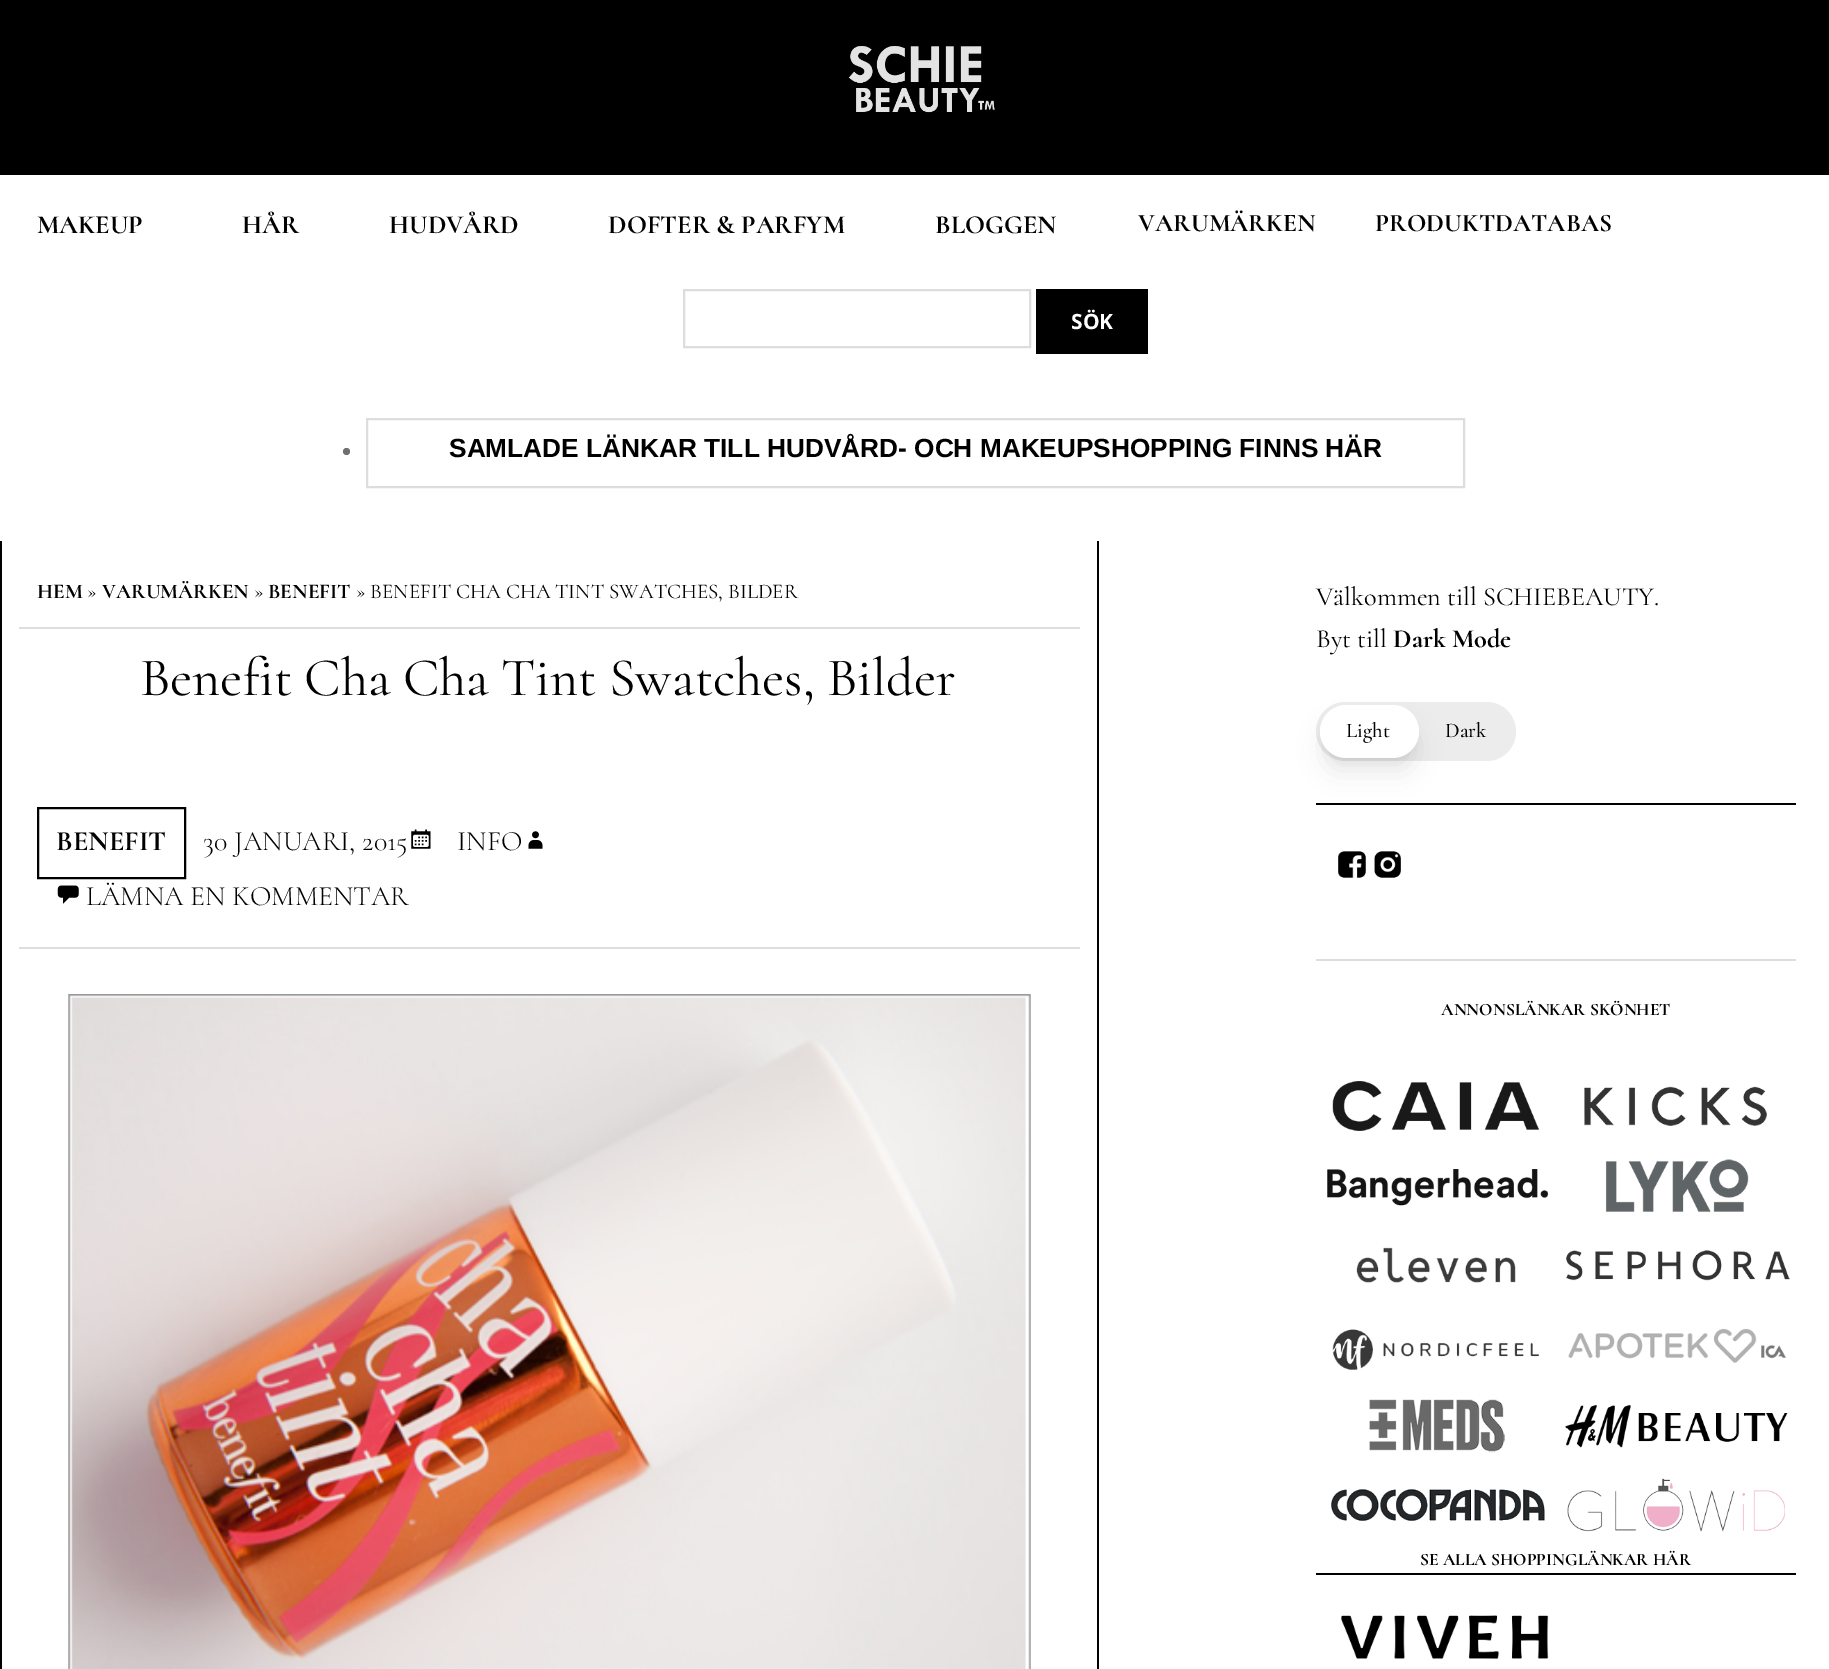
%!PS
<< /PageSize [1829 1669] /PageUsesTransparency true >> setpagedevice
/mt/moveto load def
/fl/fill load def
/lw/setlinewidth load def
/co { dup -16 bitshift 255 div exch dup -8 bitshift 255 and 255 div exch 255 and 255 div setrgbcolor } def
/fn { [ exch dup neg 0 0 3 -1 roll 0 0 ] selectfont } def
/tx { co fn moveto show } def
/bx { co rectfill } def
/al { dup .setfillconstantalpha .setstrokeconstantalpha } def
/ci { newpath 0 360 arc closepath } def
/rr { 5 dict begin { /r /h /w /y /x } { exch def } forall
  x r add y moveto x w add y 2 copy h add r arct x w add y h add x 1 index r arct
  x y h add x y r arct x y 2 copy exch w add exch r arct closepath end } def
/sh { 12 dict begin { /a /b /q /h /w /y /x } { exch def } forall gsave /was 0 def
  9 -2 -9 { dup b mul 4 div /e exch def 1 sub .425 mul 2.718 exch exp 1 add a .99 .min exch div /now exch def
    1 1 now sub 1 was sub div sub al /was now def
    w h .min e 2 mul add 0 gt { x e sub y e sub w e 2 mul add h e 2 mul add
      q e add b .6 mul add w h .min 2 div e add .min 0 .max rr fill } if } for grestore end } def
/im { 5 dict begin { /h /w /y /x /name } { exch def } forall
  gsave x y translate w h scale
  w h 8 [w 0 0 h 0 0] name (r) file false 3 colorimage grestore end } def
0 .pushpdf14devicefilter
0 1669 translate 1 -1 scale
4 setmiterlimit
0 0 1829 1669 16#FFFFFF bx
0 0 1829 175 16#000000 bx
(media/1.raw) 848 46 147 67 im
16#DDDDDD co
2 lw
684 290 346 57 rectstroke
1036 289 112 65 16#000000 bx
16#DDDDDD co
367 419 1097 68 rectstroke
16#707070 co
346.5 451.5 3.5 ci fl
1097 541 2 1128 16#000000 bx
0 541 2 1128 16#000000 bx
19 627 1061 2 16#DDDDDD bx
19 947 1061 2 16#DDDDDD bx
16#000000 co
38 808 147 70 rectstroke
(media/2.raw) 411 829 20 20 im
(media/3.raw) 528 831 15 18 im
(media/4.raw) 57 885 22 19 im
(media/5.raw) 68 994 963 675 im
16#ECECEC co
1316 702 200 59 29.5 rr fl
16#000000 co
1327 719 85 39 19.5 5 .1 sh
1316 803 480 2 16#000000 bx
1325 728 89 42 21 13 .1 sh
16#FFFFFF co
1320 705 99 53 26.5 rr fl
1316 959 480 2 16#DDDDDD bx
(media/6.raw) 1338 851 28 27 im
(media/7.raw) 1374 851 27 27 im
(media/8.raw) 1332 1081 207 50 im
(media/9.raw) 1584 1086 183 40 im
(media/10.raw) 1327 1169 221 37 im
(media/11.raw) 1605 1159 144 53 im
(media/12.raw) 1356 1247 160 36 im
(media/13.raw) 1566 1250 224 31 im
(media/14.raw) 1332 1329 207 41 im
(media/15.raw) 1568 1328 218 35 im
(media/16.raw) 1369 1399 136 54 im
(media/17.raw) 1565 1405 223 43 im
(media/18.raw) 1331 1489 214 32 im
(media/19.raw) 1567 1478 218 54 im
1316 1573 480 2 16#000000 bx
(media/20.raw) 1341 1615 208 44 im
(MAKEUP) 37 233 /Cormorant-Bold 26.25 16#000000 tx
(HÅR) 242 233 /Cormorant-Bold 26.25 16#000000 tx
(HUDVÅRD) 389 233 /Cormorant-Bold 26.25 16#000000 tx
(DOFTER & PARFYM) 608 233 /Cormorant-Bold 26.25 16#000000 tx
(BLOGGEN) 935 233 /Cormorant-Bold 26.25 16#000000 tx
(VARUMÄRKEN) 1138 231 /Cormorant-Bold 25.4 16#000000 tx
(PRODUKTDATABAS) 1375 231 /Cormorant-Bold 25.4 16#000000 tx
(SÖK) 1071 329 /NotoSans-Bold 21 16#FFFFFF tx
(SAMLADE LÄNKAR TILL HUDVÅRD- OCH MAKEUPSHOPPING FINNS HÄR) 449 457 /LiberationSans-Bold 26.25 16#000000 tx
(HEM) 37 598 /Cormorant-Bold 21 16#000000 tx
(») 87 598 /Cormorant-Regular 21 16#000000 tx
(VARUMÄRKEN) 102 598 /Cormorant-Bold 21 16#000000 tx
(») 254 598 /Cormorant-Regular 21 16#000000 tx
(BENEFIT) 268 598 /Cormorant-Bold 21 16#000000 tx
(» BENEFIT CHA CHA TINT SWATCHES, BILDER) 356 598 /Cormorant-Regular 21 16#000000 tx
/Cormorant-Regular 54.25 fn
140 695 mt -.5 0 32 (Benefit Cha Cha Tint Swatches, Bilder) widthshow
(BENEFIT) 56 850 /Cormorant-Bold 28 16#000000 tx
(30 JANUARI, 2015) 203 850 /Cormorant-Light 28 16#000000 tx
(INFO) 457 850 /Cormorant-Light 28 16#000000 tx
(LÄMNA EN KOMMENTAR) 86 905 /Cormorant-Light 28 16#000000 tx
(Välkommen till SCHIEBEAUTY.) 1316 605 /Cormorant-Regular 26.25 16#000000 tx
(Byt till) 1316 647 /Cormorant-Regular 26.25 16#000000 tx
(Dark Mode) 1393 647 /Cormorant-Bold 26.25 16#000000 tx
(Light) 1346 737 /Cormorant-Medium 21 16#000000 tx
(Dark) 1445 737 /Cormorant-Medium 21 16#000000 tx
(ANNONSLÄNKAR SKÖNHET) 1441 1015 /Cormorant-Bold 17.5 16#000000 tx
(SE ALLA SHOPPINGLÄNKAR HÄR) 1420 1565 /Cormorant-Bold 17.5 16#000000 tx
.poppdf14devicefilter showpage
